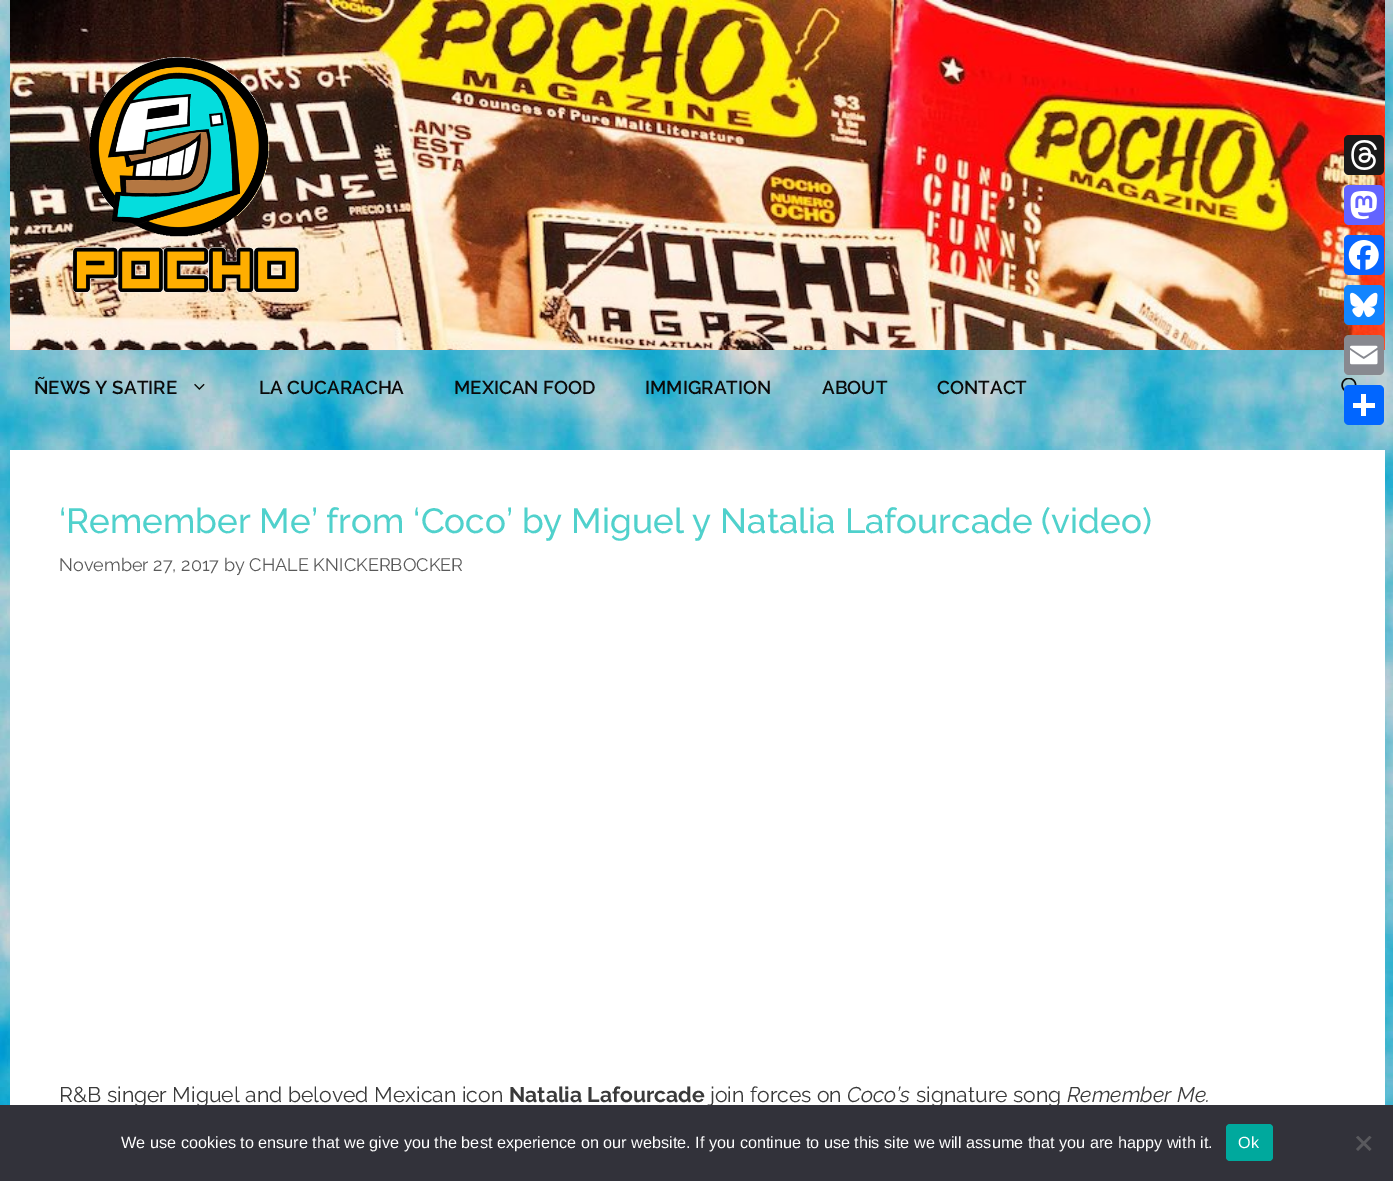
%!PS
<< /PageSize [1393 1181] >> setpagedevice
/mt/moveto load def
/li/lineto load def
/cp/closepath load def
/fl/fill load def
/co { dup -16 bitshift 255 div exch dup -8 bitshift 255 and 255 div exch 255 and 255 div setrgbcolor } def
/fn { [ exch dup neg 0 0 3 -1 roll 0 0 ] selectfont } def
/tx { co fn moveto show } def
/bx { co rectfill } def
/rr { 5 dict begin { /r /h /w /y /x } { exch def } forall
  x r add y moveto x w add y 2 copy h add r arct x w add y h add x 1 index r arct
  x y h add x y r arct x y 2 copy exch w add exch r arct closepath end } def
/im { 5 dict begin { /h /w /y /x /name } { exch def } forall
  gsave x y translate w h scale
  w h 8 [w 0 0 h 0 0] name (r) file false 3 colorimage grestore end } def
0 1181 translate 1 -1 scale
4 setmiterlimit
0 0 1393 1181 16#FFFFFF bx
(media/1.raw) 0 0 1393 1105 im
(media/2.raw) 10 0 1375 350 im
(media/3.raw) 72 57 228 236 im
(media/4.raw) 194 383 11 7 im
(media/5.raw) 1341 378 16 13 im
16#1A1A1A co
1344 135 40 40 5 rr fl
(media/6.raw) 1351 140 26 30 im
16#6364FF co
1344 185 40 40 5 rr fl
(media/7.raw) 1350 190 27 29 im
16#0866FF co
1344 235 40 40 5 rr fl
(media/8.raw) 1348 240 31 30 im
16#1285FE co
1344 285 40 40 5 rr fl
(media/9.raw) 1350 292 28 26 im
16#888990 co
1344 335 40 40 5 rr fl
(media/10.raw) 1350 345 28 20 im
16#0166FF co
1344 385 40 40 5 rr fl
1361 394 5 22 16#FFFFFF bx
1353 403 22 5 16#FFFFFF bx
10 450 1375 655 16#FFFFFF bx
(ÑEWS Y SATIRE) 34 394 /Raleway-SemiBold 18.75 16#0A0A0A tx
(LA CUCARACHA) 259 394 /Raleway-SemiBold 18.75 16#0A0A0A tx
(MEXICAN FOOD) 454 394 /Raleway-SemiBold 18.75 16#0A0A0A tx
(IMMIGRATION) 645 394 /Raleway-SemiBold 18.75 16#0A0A0A tx
(ABOUT) 822 394 /Raleway-SemiBold 18.75 16#0A0A0A tx
(CONTACT) 937 394 /Raleway-SemiBold 18.75 16#0A0A0A tx
(‘Remember Me’ from ‘Coco’ by Miguel y Natalia Lafourcade \(video\)) 59 533 /Raleway-Medium 35 16#50D1CC tx
(November 27, 2017 by CHALE KNICKERBOCKER) 59 571 /Raleway-Regular 18.1 16#595959 tx
(R&B singer Miguel and beloved Mexican icon) 59 1102 /Raleway-Regular 21.25 16#3A3A3A tx
(Natalia Lafourcade) 509 1102 /Raleway-Bold 21.25 16#3A3A3A tx
(join forces on) 710 1102 /Raleway-Regular 21.25 16#3A3A3A tx
(Coco’s) 847 1102 /Raleway-Italic 21.25 16#3A3A3A tx
(signature song) 916 1102 /Raleway-Regular 21.25 16#3A3A3A tx
(Remember Me.) 1067 1102 /Raleway-Italic 21.25 16#3A3A3A tx
0 1105 1393 76 16#32323A bx
(We use cookies to ensure that we give you the best experience on our website. If you continue to use this site we will assume that you are happy with it.) 121 1148 /LiberationSans-Regular 16.25 16#FFFFFF tx
16#00A99D co
1226 1124 47 37 4 rr fl
(Ok) 1238 1148 /LiberationSans-Regular 16.25 16#FFFFFF tx
16#59595D co
1369.5 1136 mt 1371.5 1137.5 li 1358 1151 li 1356 1149 li cp fl
1356 1137.5 mt 1358 1136 li 1371.5 1149 li 1369.5 1151 li cp fl
showpage
